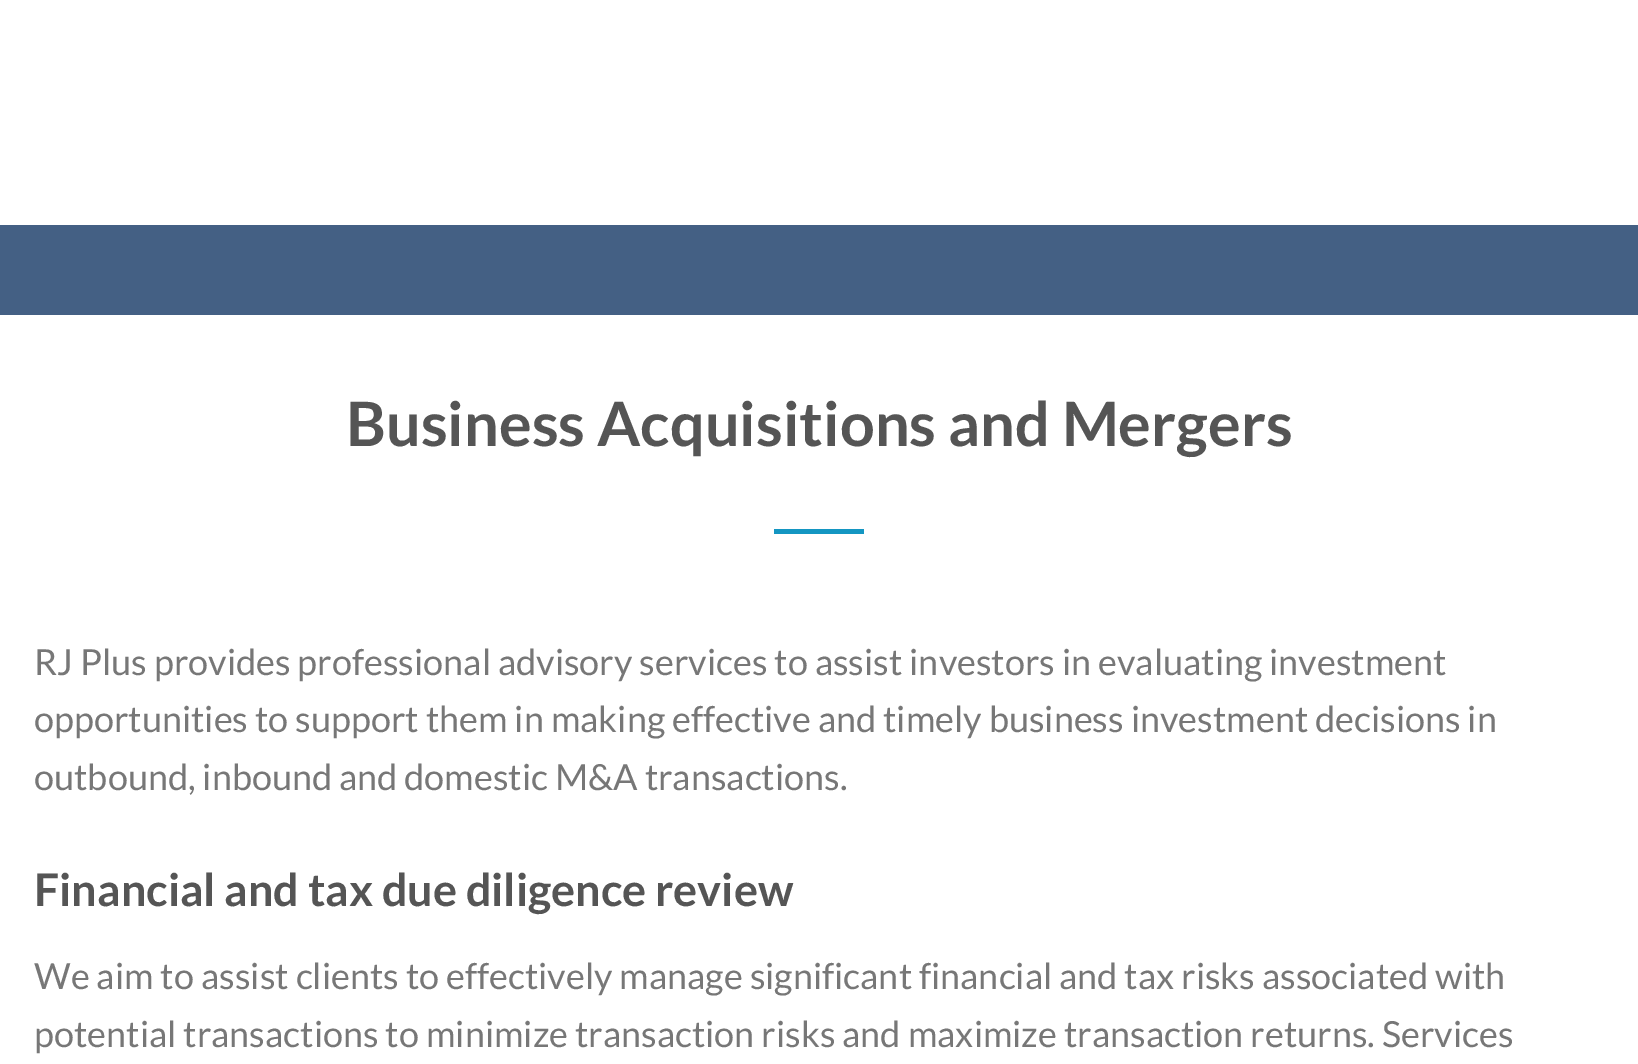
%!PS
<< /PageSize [1638 1064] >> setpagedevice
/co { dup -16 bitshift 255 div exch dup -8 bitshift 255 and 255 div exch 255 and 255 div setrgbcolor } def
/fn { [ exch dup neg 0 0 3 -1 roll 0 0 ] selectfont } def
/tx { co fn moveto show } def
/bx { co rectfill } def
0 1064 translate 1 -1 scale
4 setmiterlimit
0 0 1638 1064 16#FFFFFF bx
0 225 1638 90 16#446084 bx
774 529 90 5 16#1496C2 bx
(Business Acquisitions and Mergers) 346 446 /Lato-Bold 61.25 16#555555 tx
(RJ Plus provides professional advisory services to assist investors in evaluating investment) 34 675 /Lato-Regular 36 16#777777 tx
(opportunities to support them in making effective and timely business investment decisions in) 34 732 /Lato-Regular 36 16#777777 tx
(outbound, inbound and domestic M&A transactions.) 34 790 /Lato-Regular 36 16#777777 tx
(Financial and tax due diligence review) 34 906 /Lato-Bold 45 16#555555 tx
(We aim to assist clients to effectively manage significant financial and tax risks associated with) 34 989 /Lato-Regular 36 16#777777 tx
(potential transactions to minimize transaction risks and maximize transaction returns. Services) 34 1047 /Lato-Regular 36 16#777777 tx
showpage
